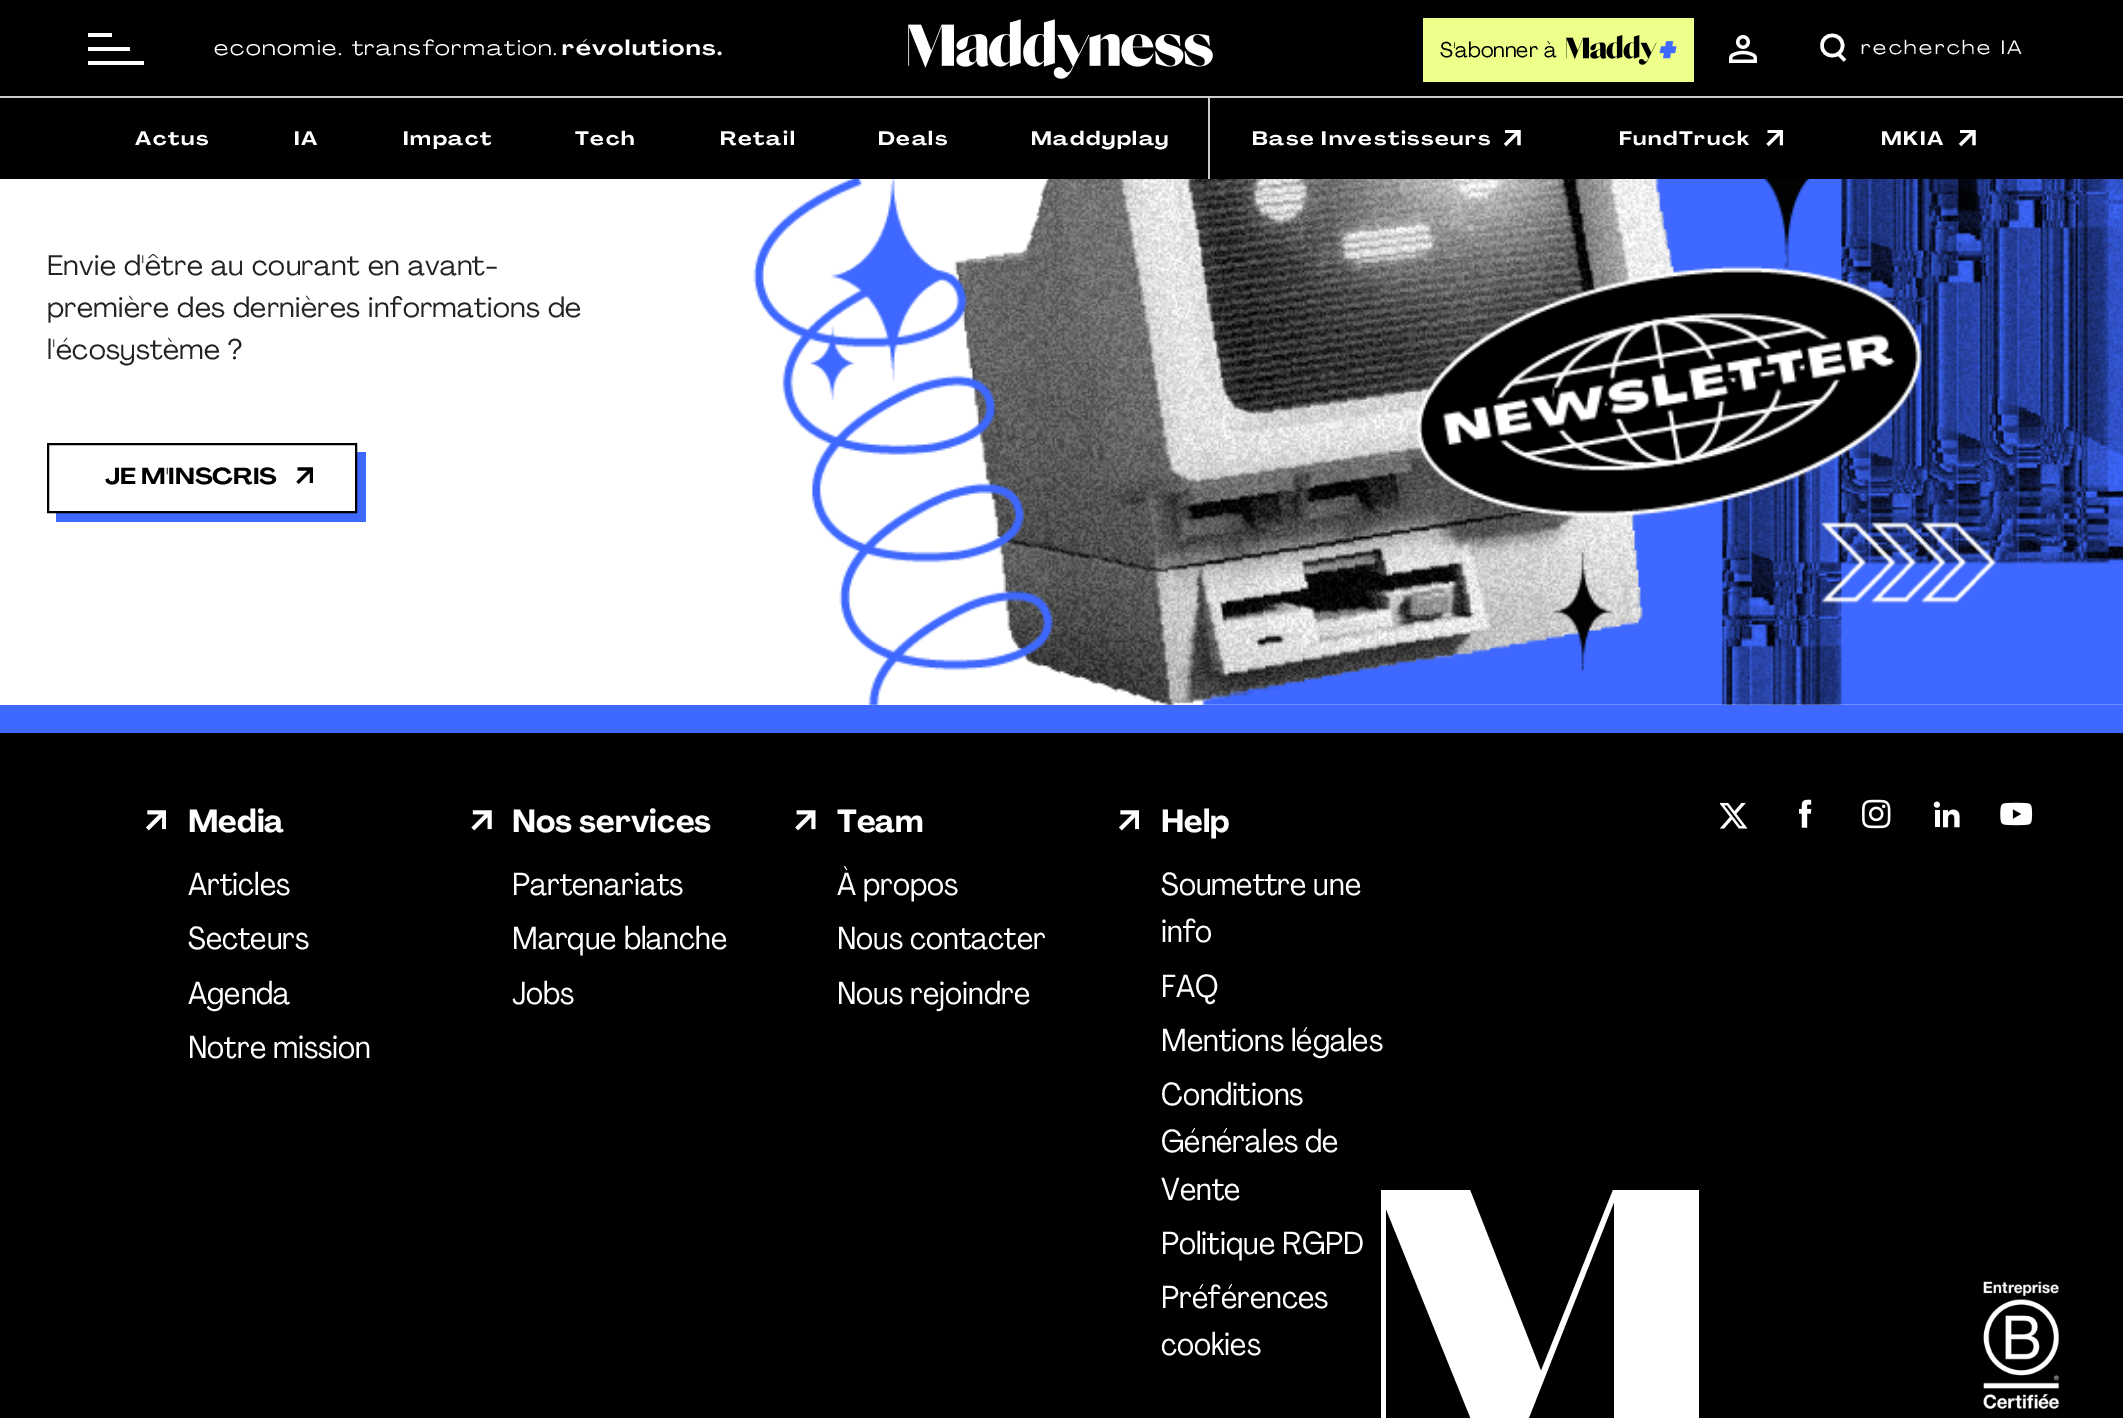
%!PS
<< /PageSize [2123 1418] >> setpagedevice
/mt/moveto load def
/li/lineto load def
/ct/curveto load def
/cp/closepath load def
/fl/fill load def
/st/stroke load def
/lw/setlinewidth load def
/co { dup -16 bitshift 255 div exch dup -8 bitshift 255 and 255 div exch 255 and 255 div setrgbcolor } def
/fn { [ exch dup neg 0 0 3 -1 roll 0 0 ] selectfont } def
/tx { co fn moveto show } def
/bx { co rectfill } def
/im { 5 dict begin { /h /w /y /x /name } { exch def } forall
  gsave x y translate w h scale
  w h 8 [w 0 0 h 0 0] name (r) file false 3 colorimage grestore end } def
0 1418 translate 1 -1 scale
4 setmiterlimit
0 0 2123 1418 16#FFFFFF bx
0 0 2123 179 16#000000 bx
0 96 2123 2 16#CCCCCC bx
88 33 24 4 16#FFFFFF bx
88 47 42 4 16#FFFFFF bx
88 61 56 4 16#FFFFFF bx
(media/1.raw) 908 19 305 60 im
1423 18 271 64 16#EEFF8A bx
(media/2.raw) 1566 35 111 30 im
(media/3.raw) 1729 35 28 28 im
16#FFFFFF co
3.5 lw
1842.5 45.5 mt 1842.5 59 1822 59 1822 45.5 ct 1822 32 1842.5 32 1842.5 45.5 ct cp 1845 60.5 mt 1839 54.5 li st
1208 98 2 81 16#CCCCCC bx
(media/4.raw) 1503 130 18 17 im
(media/5.raw) 1766 130 17 17 im
(media/4.raw) 1958 130 18 17 im
0 705 2123 28 16#3E68FF bx
56 513 mt 56 522 li 366 522 li 366 452 li 357 452 li 357 513 li cp fl
16#000000 co
2 lw
48 444 308 68 rectstroke
(media/6.raw) 296 467 17 17 im
(media/7.raw) 753 179 1370 526 im
0 733 2123 685 16#000000 bx
(media/8.raw) 146 810 20 21 im
(media/9.raw) 471 810 21 21 im
(media/10.raw) 795 810 21 21 im
(media/8.raw) 1119 810 20 21 im
(media/11.raw) 1720 802 28 27 im
(media/12.raw) 1799 799 13 29 im
(media/13.raw) 1862 799 29 30 im
(media/14.raw) 1933 801 27 27 im
(media/15.raw) 2000 802 33 24 im
(media/16.raw) 1983 1281 77 128 im
16#FFFFFF co
1541 1371 mt 1470 1190 li 1381 1190 li 1381 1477 li 1386 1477 li 1386 1209 li 1500 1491 li 1614 1202 li 1614 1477 li 1699 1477 li 1699 1190 li 1613 1190 li cp eofill
/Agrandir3-Regular 21 fn
214 55 mt 1.6 0 (economie. transformation.) ashow
/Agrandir-Bold 21 fn
562 55 mt 1.6 0 (révolutions.) ashow
(S'abonner à) 1440 57 /Agrandir-Regular 21 16#000000 tx
/Agrandir3-Regular 19.25 fn
16#FFFFFF co
1861 54 mt 2.5 0 (recherche IA) ashow
/Agrandir-Bold 19.25 fn
135 145 mt 1.6 0 (Actus) ashow
294 145 mt 1.6 0 (IA) ashow
403 145 mt 1.6 0 (Impact) ashow
575 145 mt 1.6 0 (Tech) ashow
720 145 mt 1.6 0 (Retail) ashow
878 145 mt 1.6 0 (Deals) ashow
1031 145 mt 1.6 0 (Maddyplay) ashow
1252 145 mt 1.6 0 (Base Investisseurs) ashow
1619 145 mt 1.6 0 (FundTruck) ashow
1881 145 mt 1.6 0 (MKIA) ashow
/Agrandir-Regular 28 fn
16#262222 co
47 275 mt .3 0 (Envie d'être au courant en avant-) ashow
47 317 mt .3 0 (première des dernières informations de) ashow
47 359 mt .3 0 (l'écosystème ?) ashow
(JE M'INSCRIS) 105 484 /Agrandir-Bold 22.75 16#000000 tx
(Media) 188 832 /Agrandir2-Bold 31.5 16#FFFFFF tx
(Articles) 188 895 /Agrandir2-Regular 31.5 16#FFFFFF tx
(Secteurs) 188 949 /Agrandir2-Regular 31.5 16#FFFFFF tx
(Agenda) 188 1004 /Agrandir2-Regular 31.5 16#FFFFFF tx
(Notre mission) 188 1058 /Agrandir2-Regular 31.5 16#FFFFFF tx
(Nos services) 512 832 /Agrandir2-Bold 31.5 16#FFFFFF tx
(Partenariats) 512 895 /Agrandir2-Regular 31.5 16#FFFFFF tx
(Marque blanche) 512 949 /Agrandir2-Regular 31.5 16#FFFFFF tx
(Jobs) 512 1004 /Agrandir2-Regular 31.5 16#FFFFFF tx
(Team) 837 832 /Agrandir2-Bold 31.5 16#FFFFFF tx
(À propos) 837 895 /Agrandir2-Regular 31.5 16#FFFFFF tx
(Nous contacter) 837 949 /Agrandir2-Regular 31.5 16#FFFFFF tx
(Nous rejoindre) 837 1004 /Agrandir2-Regular 31.5 16#FFFFFF tx
(Help) 1161 832 /Agrandir2-Bold 31.5 16#FFFFFF tx
(Soumettre une) 1161 895 /Agrandir2-Regular 31.5 16#FFFFFF tx
(info) 1161 942 /Agrandir2-Regular 31.5 16#FFFFFF tx
(FAQ) 1161 997 /Agrandir2-Regular 31.5 16#FFFFFF tx
(Mentions légales) 1161 1051 /Agrandir2-Regular 31.5 16#FFFFFF tx
(Conditions) 1161 1105 /Agrandir2-Regular 31.5 16#FFFFFF tx
(Générales de) 1161 1152 /Agrandir2-Regular 31.5 16#FFFFFF tx
(Vente) 1161 1200 /Agrandir2-Regular 31.5 16#FFFFFF tx
(Politique RGPD) 1161 1254 /Agrandir2-Regular 31.5 16#FFFFFF tx
(Préférences) 1161 1308 /Agrandir2-Regular 31.5 16#FFFFFF tx
(cookies) 1161 1355 /Agrandir2-Regular 31.5 16#FFFFFF tx
showpage
